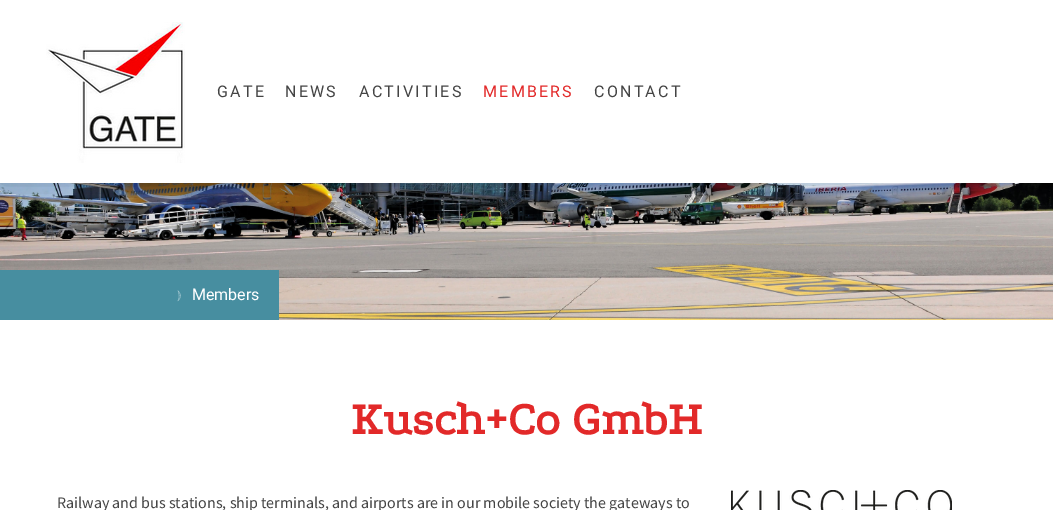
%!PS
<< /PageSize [1053 510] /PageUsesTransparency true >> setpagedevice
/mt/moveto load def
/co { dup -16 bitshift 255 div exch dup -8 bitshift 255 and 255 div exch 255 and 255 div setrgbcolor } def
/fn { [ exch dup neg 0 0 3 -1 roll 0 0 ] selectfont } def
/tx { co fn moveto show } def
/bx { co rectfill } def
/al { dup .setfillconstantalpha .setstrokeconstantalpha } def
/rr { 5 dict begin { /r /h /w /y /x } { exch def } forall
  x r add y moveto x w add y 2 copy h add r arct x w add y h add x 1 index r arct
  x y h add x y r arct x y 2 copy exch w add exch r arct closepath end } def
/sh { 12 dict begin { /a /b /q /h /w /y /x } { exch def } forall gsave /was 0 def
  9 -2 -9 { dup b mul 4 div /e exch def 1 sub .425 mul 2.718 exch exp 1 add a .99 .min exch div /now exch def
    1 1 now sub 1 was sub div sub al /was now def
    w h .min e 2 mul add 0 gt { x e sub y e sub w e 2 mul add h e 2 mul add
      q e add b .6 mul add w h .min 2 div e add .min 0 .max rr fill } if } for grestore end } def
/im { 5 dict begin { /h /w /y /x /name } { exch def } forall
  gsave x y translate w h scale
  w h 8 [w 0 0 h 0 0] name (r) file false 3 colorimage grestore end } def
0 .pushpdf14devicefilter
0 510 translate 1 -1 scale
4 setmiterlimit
0 0 1053 510 16#FFFFFF bx
(media/2.raw) 0 183 1053 137 im
16#000000 co
0 0 1053 183 0 15 .2 sh
0 0 1053 183 16#FFFFFF bx
(media/1.raw) 46 22 139 141 im
0 270 279 50 16#478EA0 bx
(media/3.raw) 731 490 221 20 im
/Roboto-Regular 16 fn
16#444444 co
217 97 mt 2.25 0 (GATE) ashow
285 97 mt 2.25 0 (NEWS) ashow
359 97 mt 2.25 0 (ACTIVITIES) ashow
16#E22929 co
483 97 mt 2.25 0 (MEMBERS) ashow
16#444444 co
594 97 mt 2.25 0 (CONTACT) ashow
(⦆) 177 299 /FreeSerif-Regular 13 16#A3C7D0 tx
(Members) 192 300 /Roboto-Regular 16 16#FFFFFF tx
(Kusch+Co GmbH) 351 434 /Podkova-Bold 48 16#E22929 tx
(Railway and bus stations, ship terminals, and airports are in our mobile society the gateways to) 57 508 /SourceSansPro-Regular 16 16#444444 tx
.poppdf14devicefilter showpage
